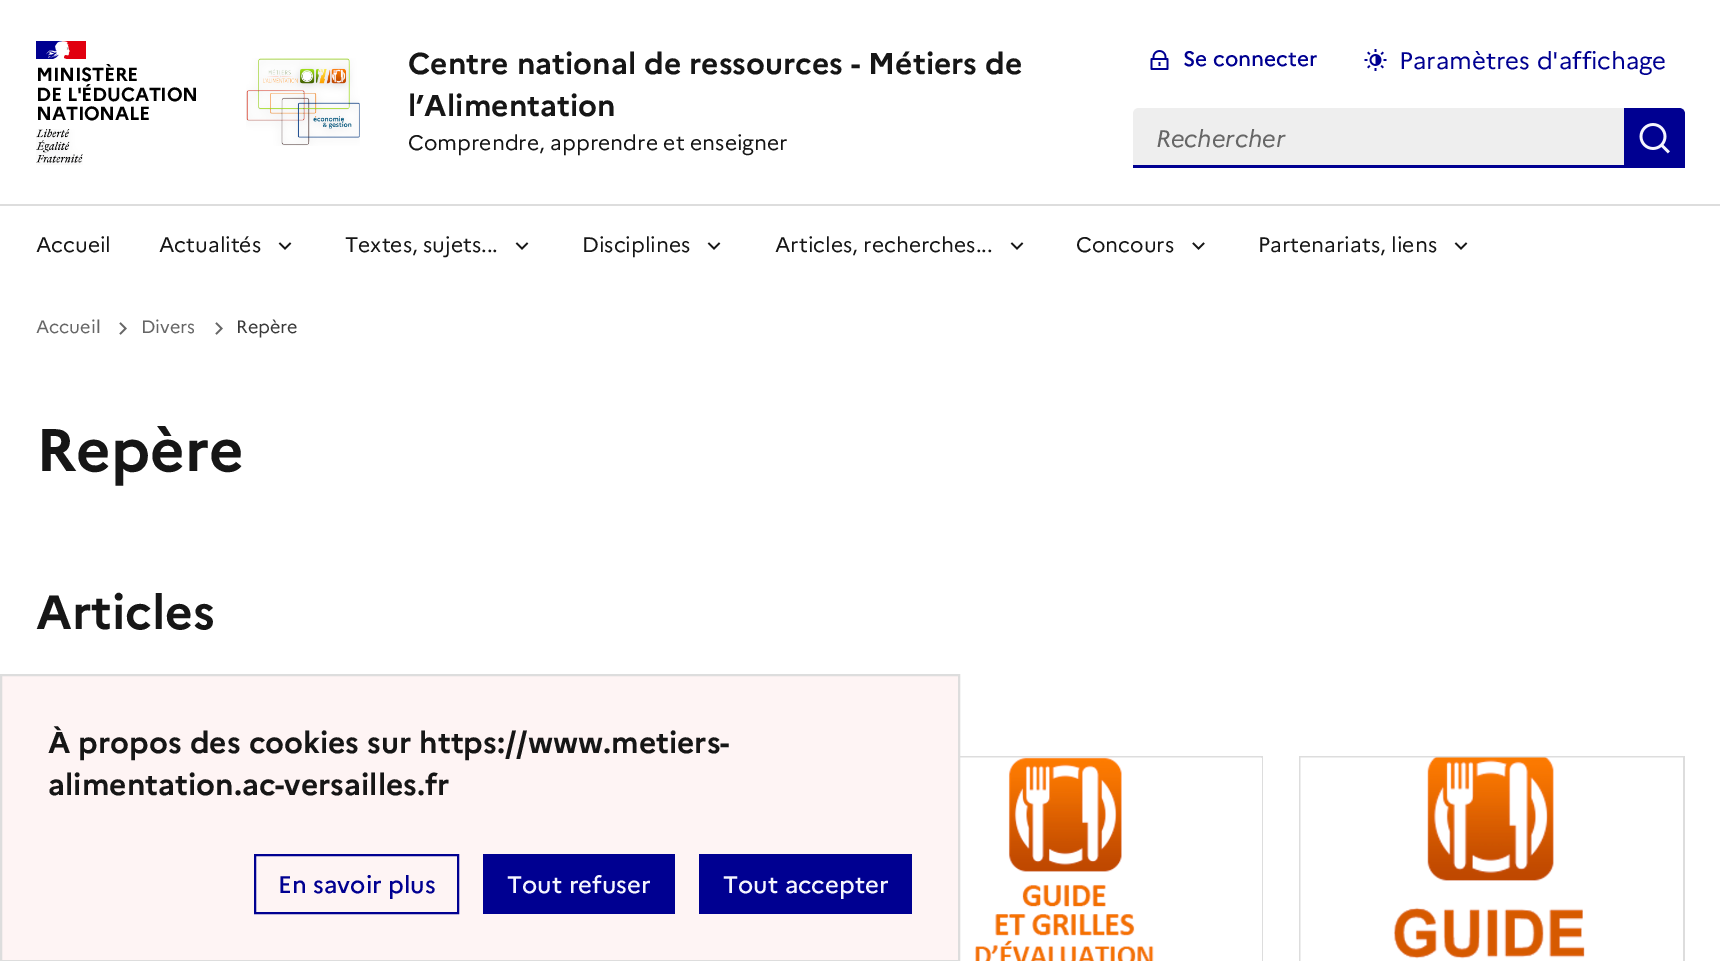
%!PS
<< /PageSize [1720 961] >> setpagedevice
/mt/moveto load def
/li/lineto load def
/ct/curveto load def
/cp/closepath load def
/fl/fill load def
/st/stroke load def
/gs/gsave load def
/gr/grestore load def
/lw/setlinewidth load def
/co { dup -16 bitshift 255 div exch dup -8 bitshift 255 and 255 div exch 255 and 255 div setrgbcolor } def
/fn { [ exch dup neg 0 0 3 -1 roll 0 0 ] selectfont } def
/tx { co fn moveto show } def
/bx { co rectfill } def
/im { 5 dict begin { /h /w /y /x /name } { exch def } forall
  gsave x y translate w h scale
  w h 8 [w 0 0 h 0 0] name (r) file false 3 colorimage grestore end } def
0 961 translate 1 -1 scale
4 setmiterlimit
0 0 1720 961 16#FFFFFF bx
36 41 26 18 16#000091 bx
62 41 24 18 16#E1000F bx
(media/1.raw) 46 41 24 18 im
(media/2.raw) 36 129 47 36 im
(media/3.raw) 246 58 114 88 im
(media/4.raw) 1150 50 19 20 im
(media/5.raw) 1364 49 23 22 im
16#EEEEEE co
1139 108 mt 1625 108 li 1625 168 li 1133 168 li 1133 114 li 1133 110.5 1135.5 108 1139 108 ct cp fl
16#000091 co
1133 165 mt 1133 168 li 1625 168 li 1625 108 li 1624 108 li 1624 165 li cp fl
1625 108 mt 1679 108 li 1682.5 108 1685 110.5 1685 114 ct 1685 168 li 1625 168 li cp fl
(media/6.raw) 1639 123 31 31 im
0 204 1720 2 16#DDDDDD bx
(media/7.raw) 278 242 14 8 im
(media/7.raw) 515 242 14 8 im
(media/7.raw) 707 242 14 8 im
(media/7.raw) 1010 242 14 8 im
(media/8.raw) 1192 242 13 8 im
(media/7.raw) 1454 242 14 8 im
(media/9.raw) 119 322 8 13 im
(media/9.raw) 215 322 8 13 im
960 756 303 2 16#DDDDDD bx
1262 756 1 205 16#DDDDDD bx
(media/10.raw) 960 757 302 204 im
1299 756 386 2 16#DDDDDD bx
1683 756 2 205 16#DDDDDD bx
1299 756 2 205 16#DDDDDD bx
(media/11.raw) 1300 757 383 204 im
16#FEF4F4 co
1 675 mt 959 675 li 959 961 li 1 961 li cp gs fl gr
16#DDDDDD co
2 lw
st
16#000091 co
255 855 203 58 rectstroke
483 854 192 60 16#000091 bx
699 854 213 60 16#000091 bx
/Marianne-Bold 19 fn
16#000000 co
36 81 mt -.25 0 (MINISTÈRE) ashow
36 101 mt -.25 0 (DE L'ÉDUCATION) ashow
36 120 mt -.25 0 (NATIONALE) ashow
(Centre national de ressources - Métiers de) 408 74 /Marianne-Bold 30 16#161616 tx
(l’Alimentation) 408 116 /Marianne-Bold 30 16#161616 tx
(Comprendre, apprendre et enseigner) 408 150 /Marianne-Regular 21 16#161616 tx
(Se connecter) 1183 66 /Marianne-Medium 21 16#000091 tx
(Paramètres d'affichage) 1399 69 /Marianne-Regular 24 16#000091 tx
(Rechercher) 1156 147 /Marianne-Italic 24 16#666666 tx
(Accueil) 36 252 /Marianne-Regular 21 16#161616 tx
(Actualités) 159 252 /Marianne-Regular 21 16#161616 tx
(Textes, sujets...) 345 252 /Marianne-Regular 21 16#161616 tx
(Disciplines) 582 252 /Marianne-Regular 21 16#161616 tx
(Articles, recherches...) 775 252 /Marianne-Regular 21 16#161616 tx
(Concours) 1076 252 /Marianne-Regular 21 16#161616 tx
(Partenariats, liens) 1258 252 /Marianne-Regular 21 16#161616 tx
(Accueil) 36 333 /Marianne-Regular 18 16#666666 tx
(Divers) 141 333 /Marianne-Regular 18 16#666666 tx
(Repère) 236 333 /Marianne-Regular 18 16#3A3A3A tx
(Repère) 36 471 /Marianne-Bold 60 16#161616 tx
(Articles) 36 629 /Marianne-Bold 48 16#161616 tx
(À propos des cookies sur https://www.metiers-) 48 753 /Marianne-Bold 30 16#161616 tx
(alimentation.ac-versailles.fr) 48 795 /Marianne-Bold 30 16#161616 tx
(En savoir plus) 278 893 /Marianne-Medium 24 16#000091 tx
(Tout refuser) 507 893 /Marianne-Medium 24 16#F5F5FE tx
(Tout accepter) 723 893 /Marianne-Medium 24 16#F5F5FE tx
showpage
